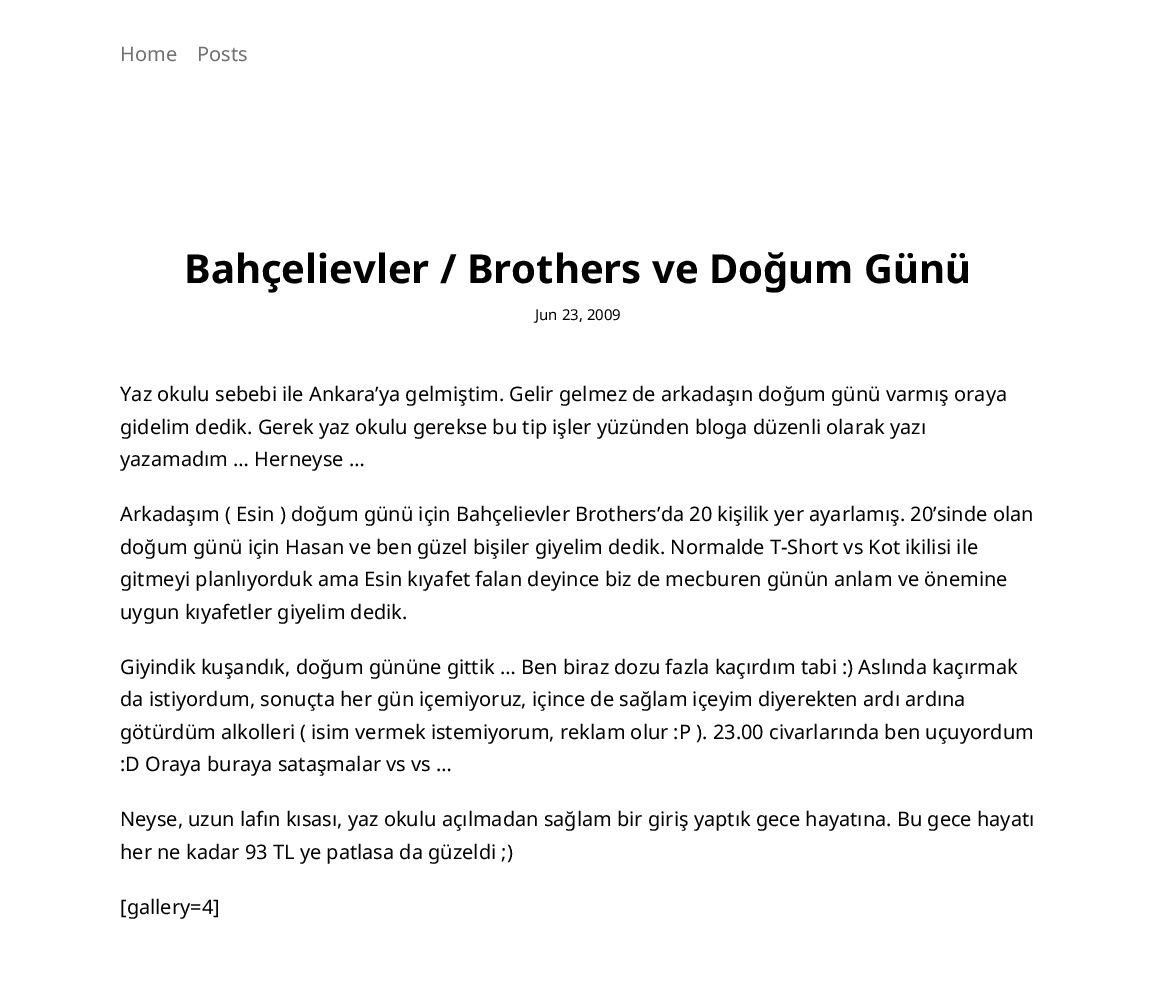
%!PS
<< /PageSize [1154 1005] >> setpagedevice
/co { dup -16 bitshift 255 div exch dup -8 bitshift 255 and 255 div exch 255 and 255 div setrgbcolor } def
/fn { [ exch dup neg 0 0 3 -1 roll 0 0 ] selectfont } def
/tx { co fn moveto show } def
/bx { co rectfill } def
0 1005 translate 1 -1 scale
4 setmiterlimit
0 0 1154 1005 16#FFFFFF bx
(Home) 120 61 /NotoSans-Regular 20 16#707070 tx
(Posts) 197 61 /NotoSans-Regular 20 16#707070 tx
(Bahçelievler / Brothers ve Doğum Günü) 184 283 /NotoSans-Bold 40 16#000000 tx
(Jun 23, 2009) 535 320 /NotoSans-Regular 15 16#000000 tx
(Yaz okulu sebebi ile Ankara’ya gelmiştim. Gelir gelmez de arkadaşın doğum günü varmış oraya) 120 401 /NotoSans-Regular 20 16#000000 tx
(gidelim dedik. Gerek yaz okulu gerekse bu tip işler yüzünden bloga düzenli olarak yazı) 120 434 /NotoSans-Regular 20 16#000000 tx
(yazamadım … Herneyse …) 120 466 /NotoSans-Regular 20 16#000000 tx
(Arkadaşım \( Esin \) doğum günü için Bahçelievler Brothers’da 20 kişilik yer ayarlamış. 20’sinde olan) 120 521 /NotoSans-Regular 20 16#000000 tx
(doğum günü için Hasan ve ben güzel bişiler giyelim dedik. Normalde T-Short vs Kot ikilisi ile) 120 554 /NotoSans-Regular 20 16#000000 tx
(gitmeyi planlıyorduk ama Esin kıyafet falan deyince biz de mecburen günün anlam ve önemine) 120 586 /NotoSans-Regular 20 16#000000 tx
(uygun kıyafetler giyelim dedik.) 120 619 /NotoSans-Regular 20 16#000000 tx
(Giyindik kuşandık, doğum gününe gittik … Ben biraz dozu fazla kaçırdım tabi :\) Aslında kaçırmak) 120 674 /NotoSans-Regular 20 16#000000 tx
(da istiyordum, sonuçta her gün içemiyoruz, içince de sağlam içeyim diyerekten ardı ardına) 120 706 /NotoSans-Regular 20 16#000000 tx
(götürdüm alkolleri \( isim vermek istemiyorum, reklam olur :P \). 23.00 civarlarında ben uçuyordum) 120 739 /NotoSans-Regular 20 16#000000 tx
(:D Oraya buraya sataşmalar vs vs …) 120 771 /NotoSans-Regular 20 16#000000 tx
(Neyse, uzun lafın kısası, yaz okulu açılmadan sağlam bir giriş yaptık gece hayatına. Bu gece hayatı) 120 826 /NotoSans-Regular 20 16#000000 tx
(her ne kadar 93 TL ye patlasa da güzeldi ;\)) 120 859 /NotoSans-Regular 20 16#000000 tx
([gallery=4]) 120 914 /NotoSans-Regular 20 16#000000 tx
showpage
